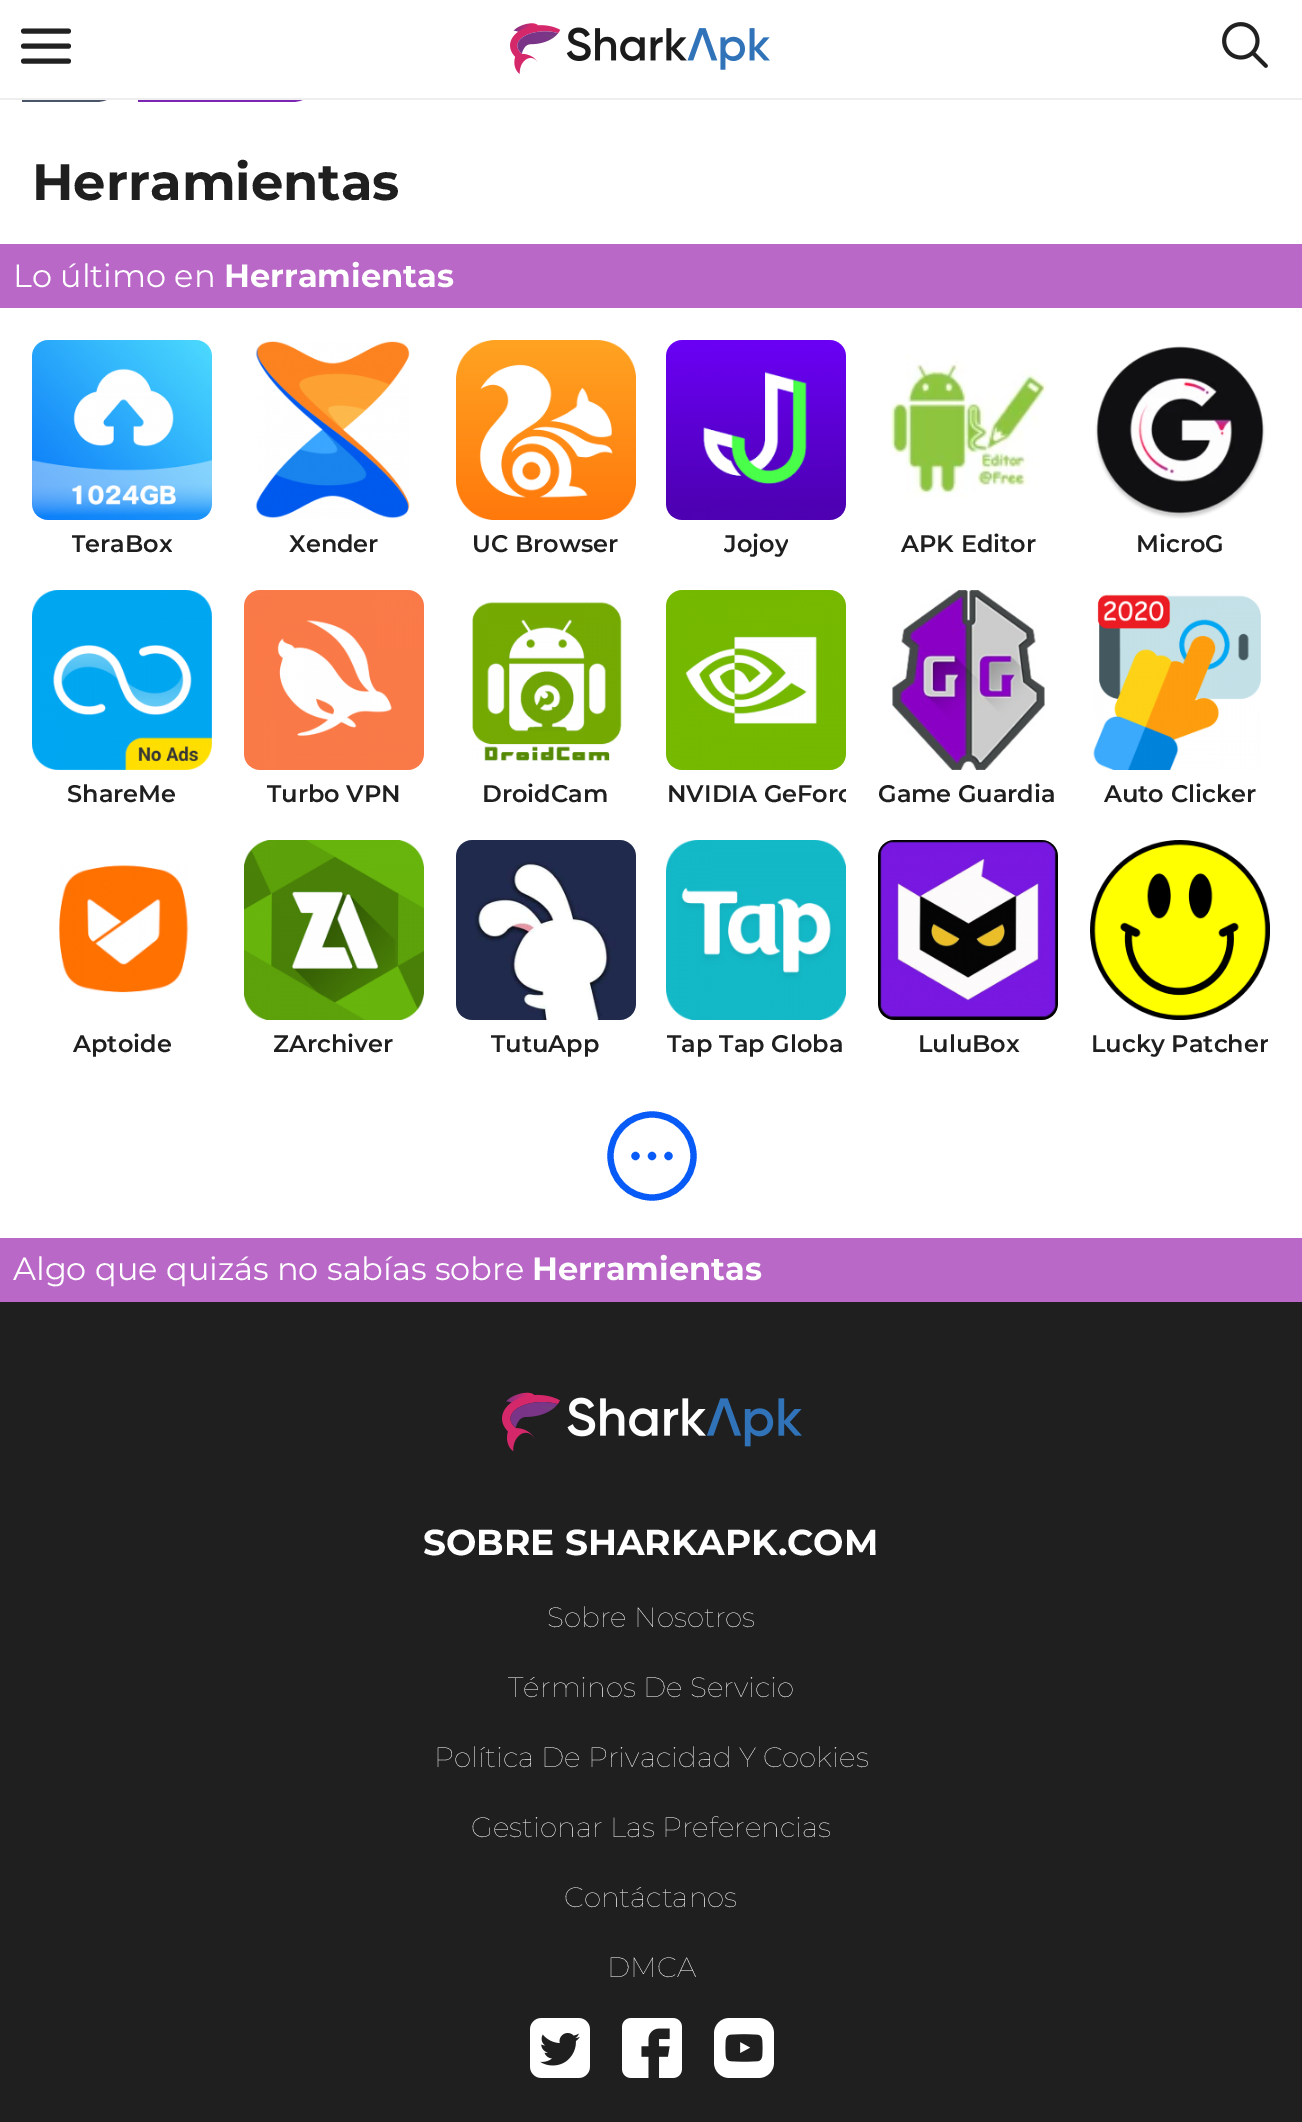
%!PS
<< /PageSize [1302 2122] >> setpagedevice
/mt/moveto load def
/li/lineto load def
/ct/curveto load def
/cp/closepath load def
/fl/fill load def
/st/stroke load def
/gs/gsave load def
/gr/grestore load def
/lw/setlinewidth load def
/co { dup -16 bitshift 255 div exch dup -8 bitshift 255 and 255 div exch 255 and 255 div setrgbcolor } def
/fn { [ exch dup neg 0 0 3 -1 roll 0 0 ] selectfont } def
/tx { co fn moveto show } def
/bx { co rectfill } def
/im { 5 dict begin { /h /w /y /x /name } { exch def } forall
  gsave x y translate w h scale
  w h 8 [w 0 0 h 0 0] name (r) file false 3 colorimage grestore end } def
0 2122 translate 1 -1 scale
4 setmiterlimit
0 0 1302 2122 16#FFFFFF bx
16#4A5568 co
22 68 mt 118 68 li 121.5 68 124 70.5 124 74 ct 124 89.5 111.5 102 96 102 ct 22 102 li cp fl
16#7C25B3 co
138 68 mt 314 68 li 317.5 68 320 70.5 320 74 ct 320 89.5 307.5 102 292 102 ct 138 102 li cp fl
22 68 298 30 16#FFFFFF bx
0 98 1302 2 16#EEEEEE bx
16#212121 co
5 lw
1 setlinecap
1 setlinejoin
23.5 46 mt 68.5 46 li 23.5 61 mt 68.5 61 li 23.5 31 mt 68.5 31 li st
(media/1.raw) 510 23 260 51 im
(media/2.raw) 1222 22 46 46 im
0 244 1302 64 16#BA68C8 bx
(media/3.raw) 32 340 180 180 im
(media/4.raw) 255 341 155 178 im
(media/5.raw) 456 340 180 180 im
(media/6.raw) 666 340 180 180 im
(media/7.raw) 890 355 156 143 im
(media/8.raw) 1095 346 170 173 im
(media/9.raw) 32 590 180 180 im
(media/10.raw) 244 590 180 180 im
(media/11.raw) 472 601 150 160 im
(media/12.raw) 666 590 180 180 im
(media/13.raw) 892 590 153 180 im
(media/14.raw) 1093 594 168 176 im
(media/15.raw) 59 865 130 128 im
(media/16.raw) 244 840 180 180 im
(media/17.raw) 456 840 180 180 im
(media/18.raw) 666 840 180 180 im
(media/19.raw) 878 840 180 180 im
(media/20.raw) 1090 840 180 180 im
16#085BF7 co
6.2 lw
652 1197.5 mt 675 1197.5 693.5 1179 693.5 1156 ct 693.5 1133 675 1114.5 652 1114.5 ct 629 1114.5 610.5 1133 610.5 1156 ct 610.5 1179 629 1197.5 652 1197.5 ct cp st
8.3 lw
668.5 1156 mt 668.5 1156 li 652 1156 mt 652 1156 li 635.5 1156 mt 635.5 1156 li st
0 1238 1302 64 16#BA68C8 bx
0 1302 1302 820 16#1F1F1F bx
(media/21.raw) 502 1392 300 60 im
(media/22.raw) 530 2018 60 60 im
(media/23.raw) 622 2018 60 60 im
(media/24.raw) 714 2018 60 60 im
(Herramientas) 32 200 /Montserrat-Bold 51.25 16#1F1F1F tx
(Lo último en) 13 287 /Montserrat-Regular 32 16#FFFFFF tx
(Herramientas) 224 287 /Montserrat-Bold 32 16#FFFFFF tx
gs
72 528 100 30 rectclip
(TeraBox) 71 552 /Montserrat-SemiBold 24 16#1F1F1F tx
gr
(Xender) 289 552 /Montserrat-SemiBold 24 16#1F1F1F tx
(UC Browser) 472 552 /Montserrat-SemiBold 24 16#1F1F1F tx
gs
724 528 64 30 rectclip
(Jojoy) 724 552 /Montserrat-SemiBold 24 16#1F1F1F tx
gr
(APK Editor) 901 552 /Montserrat-SemiBold 24 16#1F1F1F tx
(MicroG) 1136 552 /Montserrat-SemiBold 24 16#1F1F1F tx
(ShareMe) 67 802 /Montserrat-SemiBold 24 16#1F1F1F tx
(Turbo VPN) 267 802 /Montserrat-SemiBold 24 16#1F1F1F tx
(DroidCam) 482 802 /Montserrat-SemiBold 24 16#1F1F1F tx
gs
666 778 180 30 rectclip
(NVIDIA GeForc) 667 802 /Montserrat-SemiBold 24 16#1F1F1F tx
gr
(Game Guardia) 878 802 /Montserrat-SemiBold 24 16#1F1F1F tx
(Auto Clicker) 1104 802 /Montserrat-SemiBold 24 16#1F1F1F tx
(Aptoide) 73 1052 /Montserrat-SemiBold 24 16#1F1F1F tx
(ZArchiver) 273 1052 /Montserrat-SemiBold 24 16#1F1F1F tx
(TutuApp) 491 1052 /Montserrat-SemiBold 24 16#1F1F1F tx
(Tap Tap Globa) 667 1052 /Montserrat-SemiBold 24 16#1F1F1F tx
(LuluBox) 918 1052 /Montserrat-SemiBold 24 16#1F1F1F tx
gs
1090 1028 178 30 rectclip
(Lucky Patcher) 1091 1052 /Montserrat-SemiBold 24 16#1F1F1F tx
gr
(Algo que quizás no sabías sobre) 13 1280 /Montserrat-Regular 32 16#FFFFFF tx
(Herramientas) 532 1280 /Montserrat-Bold 32 16#FFFFFF tx
(SOBRE SHARKAPK.COM) 423 1555 /Montserrat-Bold 36 16#FFFFFF tx
(Sobre Nosotros) 547 1627 /Montserrat-Thin 28 16#FFFFFF tx
(Términos De Servicio) 508 1697 /Montserrat-Thin 28 16#FFFFFF tx
(Política De Privacidad Y Cookies) 434 1767 /Montserrat-Thin 28 16#FFFFFF tx
(Gestionar Las Preferencias) 471 1837 /Montserrat-Thin 28 16#FFFFFF tx
(Contáctanos) 564 1907 /Montserrat-Thin 28 16#FFFFFF tx
(DMCA) 607 1977 /Montserrat-Thin 28 16#FFFFFF tx
showpage
